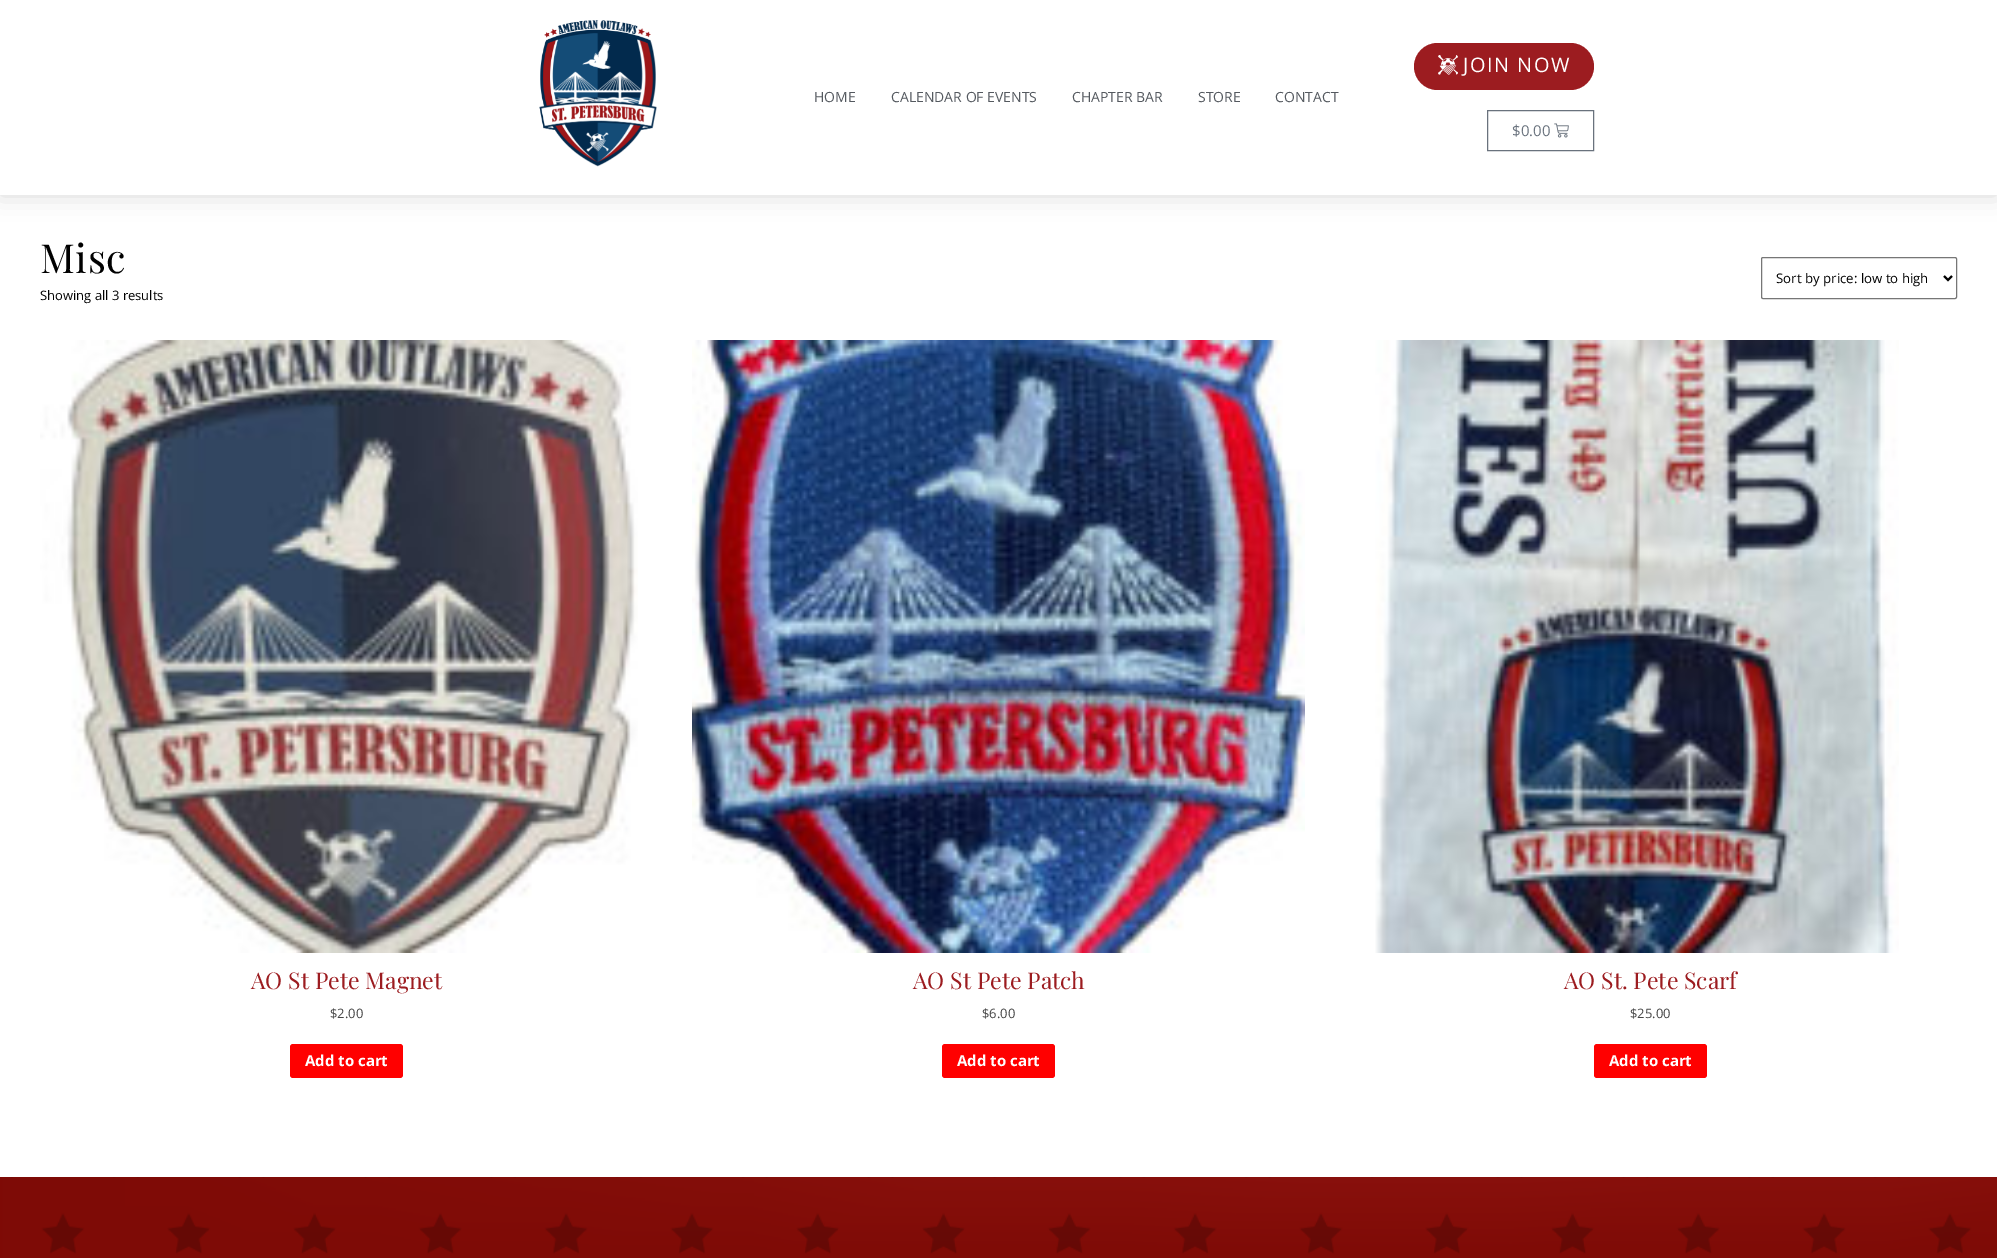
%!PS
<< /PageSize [1997 1258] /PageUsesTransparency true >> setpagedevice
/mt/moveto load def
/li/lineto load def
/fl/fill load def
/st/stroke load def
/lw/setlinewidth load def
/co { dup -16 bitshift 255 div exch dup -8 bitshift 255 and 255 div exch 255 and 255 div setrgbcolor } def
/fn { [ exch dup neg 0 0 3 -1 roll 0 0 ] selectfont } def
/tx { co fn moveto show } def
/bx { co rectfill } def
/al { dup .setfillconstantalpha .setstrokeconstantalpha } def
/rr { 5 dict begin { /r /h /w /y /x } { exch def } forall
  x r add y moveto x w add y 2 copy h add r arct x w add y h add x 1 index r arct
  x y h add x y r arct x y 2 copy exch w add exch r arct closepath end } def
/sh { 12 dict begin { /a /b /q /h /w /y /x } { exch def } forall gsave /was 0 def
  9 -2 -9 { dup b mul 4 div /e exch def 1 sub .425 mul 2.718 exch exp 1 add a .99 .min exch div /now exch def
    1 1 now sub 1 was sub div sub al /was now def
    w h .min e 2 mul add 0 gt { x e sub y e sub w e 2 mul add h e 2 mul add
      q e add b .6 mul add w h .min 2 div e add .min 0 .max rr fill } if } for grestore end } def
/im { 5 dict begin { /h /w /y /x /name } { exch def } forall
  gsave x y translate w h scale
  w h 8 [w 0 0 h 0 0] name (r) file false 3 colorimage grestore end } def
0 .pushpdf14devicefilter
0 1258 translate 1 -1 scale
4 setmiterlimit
0 0 1997 1258 16#FFFFFF bx
(media/1.raw) 0 1177 1997 81 im
16#000000 co
0 0 1997 195 0 12 .15 sh
0 0 1997 195 16#FFFFFF bx
(media/2.raw) 539 20 118 147 im
16#9C1C20 co
1414 43 180 47 23.5 rr fl
(media/3.raw) 1438 55 20 20 im
16#69727D co
1487.5 110.5 106 40 rectstroke
(media/4.raw) 1554 123 15 15 im
16#767676 co
1761.5 257.5 195 41 1.5 rr st
16#000000 co
2 lw
1944 276 mt 1948 280 li 1952 276 li st
(media/5.raw) 40 340 598 613 im
16#FF0000 co
290 1044 113 34 3 rr fl
(media/6.raw) 692 340 613 613 im
942 1044 113 34 3 rr fl
(media/7.raw) 1375 340 524 613 im
1594 1044 113 34 3 rr fl
(HOME) 814 102 /OpenSans-Regular 14 16#54595F tx
(CALENDAR OF EVENTS) 891 102 /OpenSans-Regular 14 16#54595F tx
(CHAPTER BAR) 1072 102 /OpenSans-Regular 14 16#54595F tx
(STORE) 1198 102 /OpenSans-Regular 14 16#54595F tx
(CONTACT) 1275 102 /OpenSans-Regular 14 16#54595F tx
/OpenSans-Regular 20 fn
16#FFFFFF co
1463 72 mt 1.5 0 (JOIN NOW) ashow
($0.00) 1512 136 /OpenSans-Regular 15 16#69727D tx
/PlayfairDisplay-Regular 40 fn
16#000000 co
40 273 mt .5 0 (Misc) ashow
(Sort by price: low to high) 1776 283 /OpenSans-Regular 13.25 16#000000 tx
(Showing all 3 results) 40 300 /OpenSans-Regular 13 16#000000 tx
(AO St Pete Magnet) 251 989 /PlayfairDisplay-Regular 23 16#9C1C20 tx
($2.00) 330 1018 /OpenSans-Regular 13 16#464646 tx
(Add to cart) 305 1066 /OpenSans-Bold 15 16#FFFFFF tx
(AO St Pete Patch) 913 989 /PlayfairDisplay-Regular 23 16#9C1C20 tx
($6.00) 982 1018 /OpenSans-Regular 13 16#464646 tx
(Add to cart) 957 1066 /OpenSans-Bold 15 16#FFFFFF tx
(AO St. Pete Scarf) 1564 989 /PlayfairDisplay-Regular 23 16#9C1C20 tx
($25.00) 1630 1018 /OpenSans-Regular 13 16#464646 tx
(Add to cart) 1609 1066 /OpenSans-Bold 15 16#FFFFFF tx
.poppdf14devicefilter showpage
